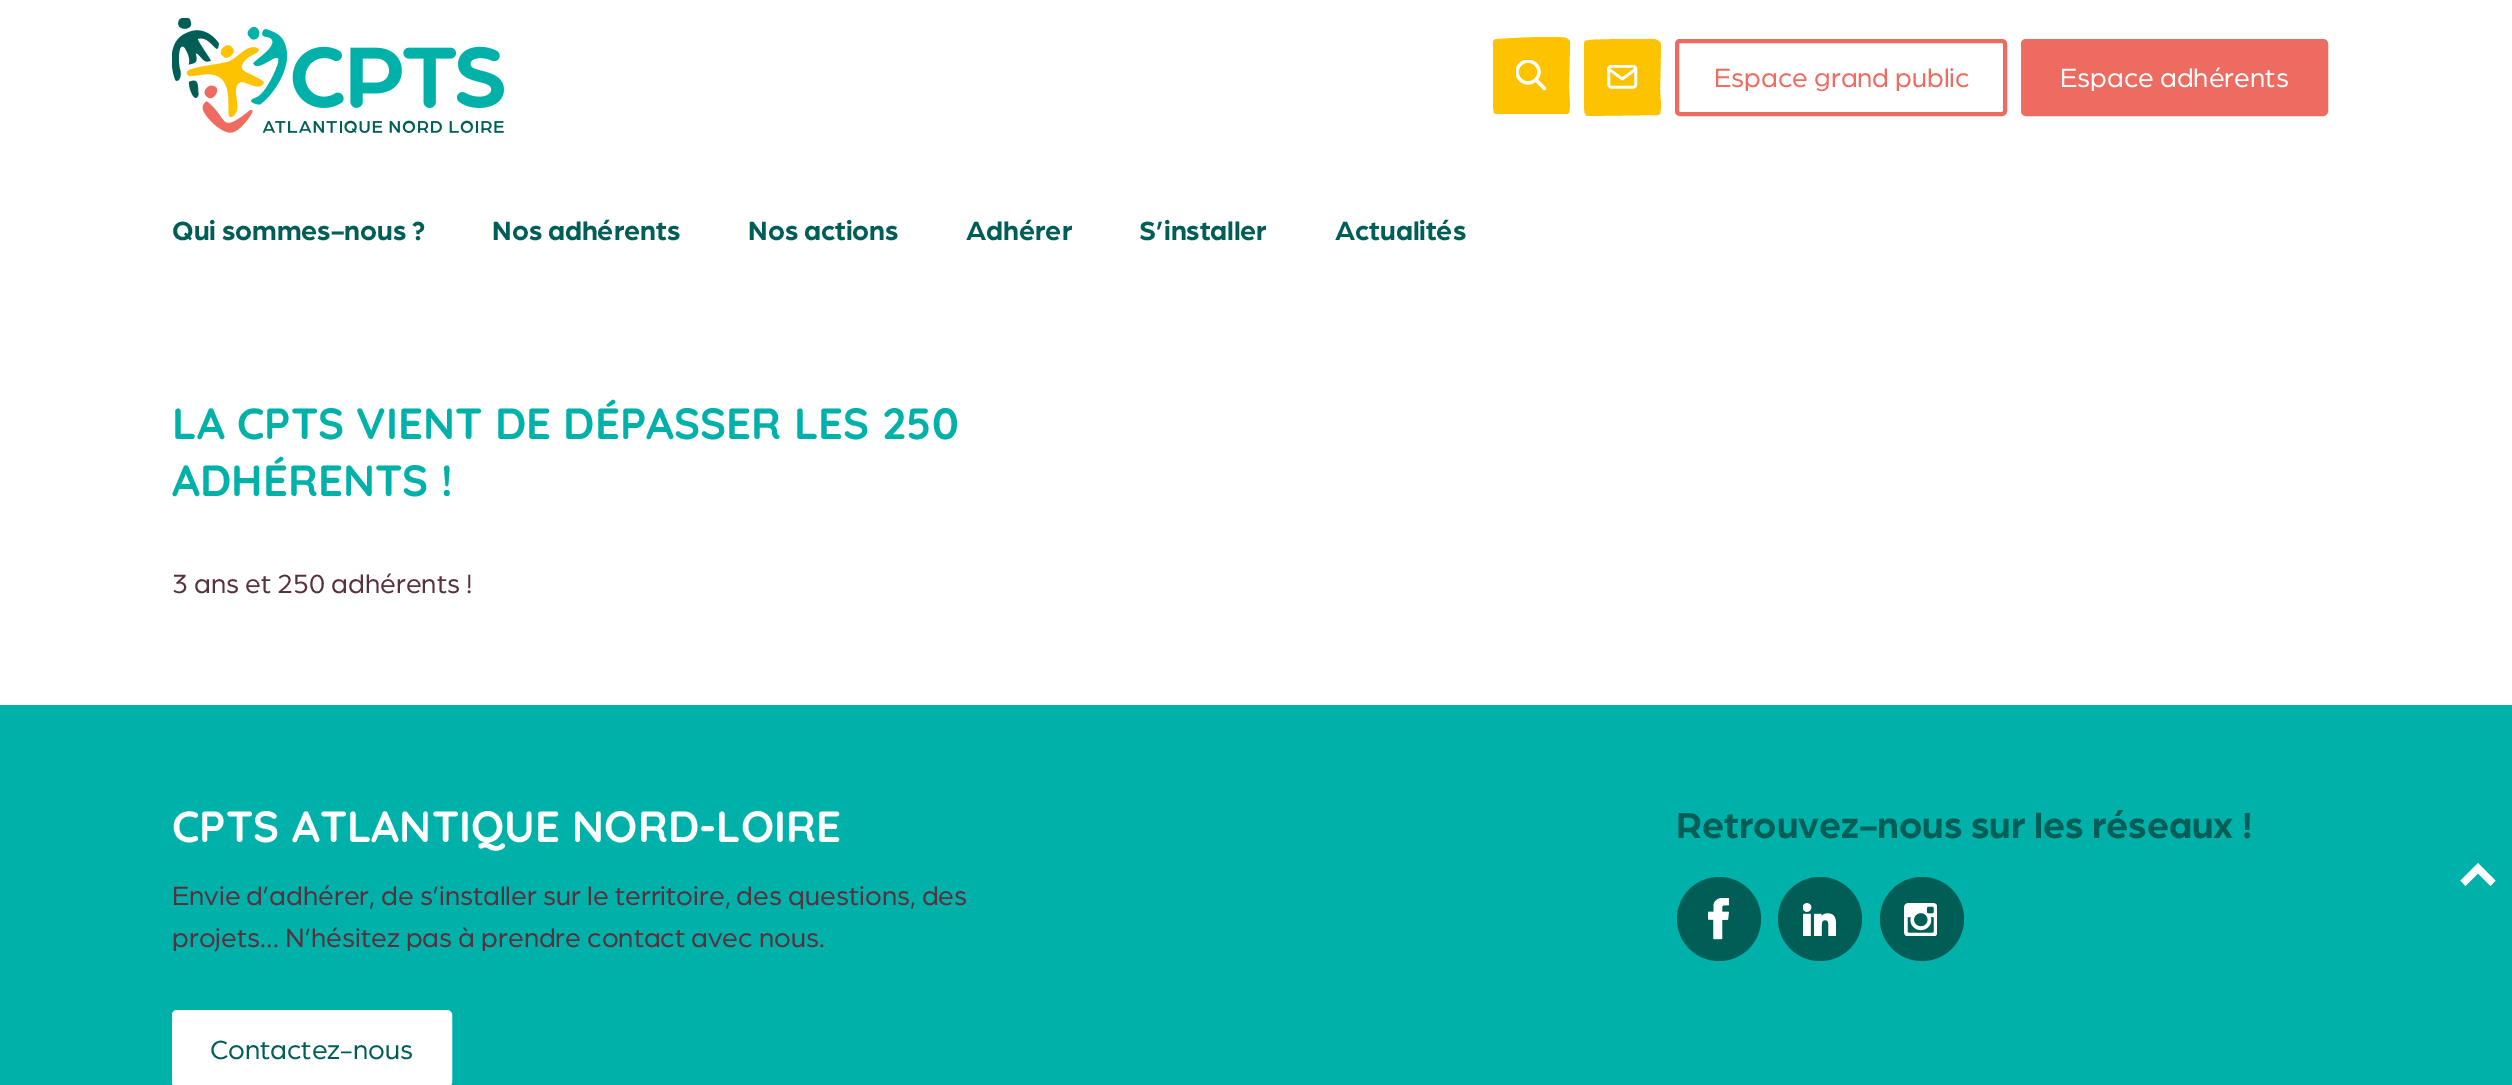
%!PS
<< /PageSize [2512 1085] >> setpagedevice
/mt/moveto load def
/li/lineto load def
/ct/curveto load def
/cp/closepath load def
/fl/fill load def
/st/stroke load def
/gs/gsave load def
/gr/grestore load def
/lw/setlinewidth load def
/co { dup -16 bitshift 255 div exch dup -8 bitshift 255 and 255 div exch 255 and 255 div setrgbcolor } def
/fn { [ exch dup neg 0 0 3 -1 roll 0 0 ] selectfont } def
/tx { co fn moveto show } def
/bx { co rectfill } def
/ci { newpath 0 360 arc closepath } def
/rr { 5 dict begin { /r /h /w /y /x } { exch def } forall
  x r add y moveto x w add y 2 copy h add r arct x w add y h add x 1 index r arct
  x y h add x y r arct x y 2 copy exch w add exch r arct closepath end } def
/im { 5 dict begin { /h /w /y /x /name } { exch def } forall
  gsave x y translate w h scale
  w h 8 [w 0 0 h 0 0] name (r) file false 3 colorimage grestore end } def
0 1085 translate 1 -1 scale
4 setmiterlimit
0 0 2512 1085 16#FFFFFF bx
(media/1.raw) 172 18 332 115 im
gs
1493 37 77 77 rectclip
16#FDC300 co
1496 114 mt 1567 114 li 1569 113 li 1571 104 1569 95 1569 86 ct 1570 46 li 1570 41 1570 40 1566 38 ct 1562 37 1557 37 1552 37 ct 1546 37 li 1530 37 1514 38 1498 39 ct 1496 39 1495 39 1494 40 ct 1492 42 1493 52 1493 55 ct 1493 85 li 1493 94 1492 103 1494 113 ct cp fl
gr
3.2 lw
1 setlinecap
1537 81 mt 1544.5 88.5 li st
gs
1516 60 31 31 rectclip
0 setlinecap
1528 72 11 ci st
gr
gs
1584 39 77 77 rectclip
16#FDC300 co
1587 116 mt 1658 115 li 1660 114 li 1662 106 1660 97 1660 88 ct 1661 48 li 1661 43 1661 42 1657 40 ct 1653 38 1648 39 1643 39 ct 1637 39 li 1621 39 1605 39 1589 40 ct 1587 41 1586 40 1585 41 ct 1583 43 1584 54 1584 56 ct 1584 87 li 1584 96 1583 105 1585 114 ct cp fl
gr
(media/2.raw) 1607 65 31 24 im
16#ED6B61 co
4 lw
0 setlinecap
1677 41 328 73 3 rr st
2023 41 303 73 3 rr gs fl gr
st
0 705 2512 380 16#00B1AA bx
16#FFFFFF co
174 1012 276 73 3 rr gs fl gr
st
16#005E56 co
1719 919 42 ci fl
(media/3.raw) 1708 898 21 42 im
1820 919 42 ci fl
(media/4.raw) 1803 903 33 33 im
1922 919 42 ci fl
(media/5.raw) 1904 903 33 33 im
16#FFFFFF co
2478 863 mt 2495.5 880.5 li 2490.5 886 li 2478 873.5 li 2465.5 886 li 2460.5 880.5 li cp fl
(Espace grand public) 1714 87 /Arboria-Regular 28 16#ED6B61 tx
(Espace adhérents) 2060 87 /Arboria-Regular 28 16#FFFFFF tx
(Qui sommes-nous ?) 172 240 /Arboria-Bold 28 16#005E56 tx
(Nos adhérents) 492 240 /Arboria-Bold 28 16#005E56 tx
(Nos actions) 748 240 /Arboria-Bold 28 16#005E56 tx
(Adhérer) 966 240 /Arboria-Bold 28 16#005E56 tx
(S’installer) 1139 240 /Arboria-Bold 28 16#005E56 tx
(Actualités) 1335 240 /Arboria-Bold 28 16#005E56 tx
(LA CPTS VIENT DE DÉPASSER LES 250) 172 439 /Quicksand-Bold 43.75 16#00B1AA tx
(ADHÉRENTS !) 172 496 /Quicksand-Bold 43.75 16#00B1AA tx
(3 ans et 250 adhérents !) 172 593 /Arboria-Regular 28 16#57313D tx
(CPTS ATLANTIQUE NORD-LOIRE) 172 842 /Quicksand-Bold 43.75 16#FFFFFF tx
(Envie d’adhérer, de s’installer sur le territoire, des questions, des) 172 905 /Arboria-Regular 28 16#57313D tx
(projets… N’hésitez pas à prendre contact avec nous.) 172 947 /Arboria-Regular 28 16#57313D tx
(Contactez-nous) 210 1059 /Arboria-Regular 28 16#005E56 tx
(Retrouvez-nous sur les réseaux !) 1676 838 /Arboria-Bold 38.5 16#005E56 tx
showpage
